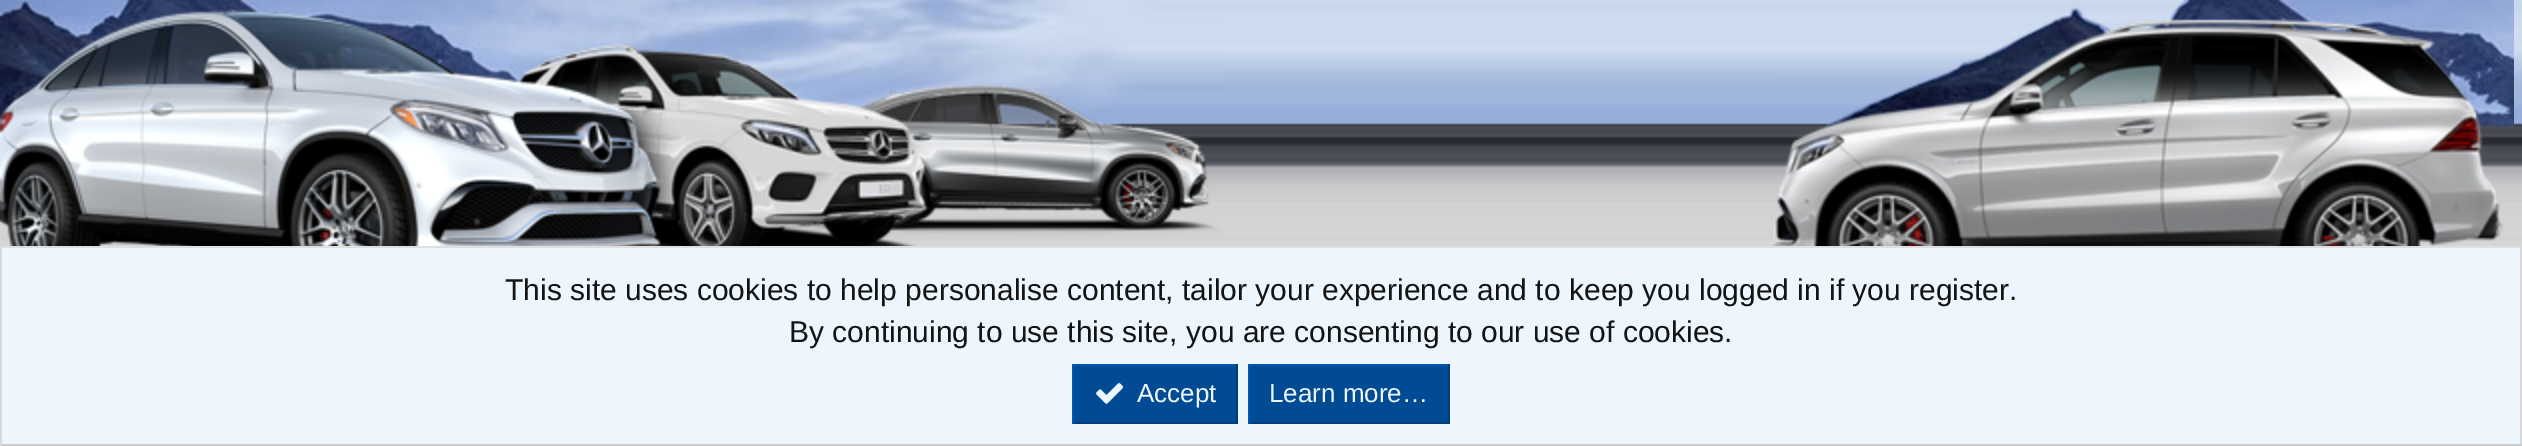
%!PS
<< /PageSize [2522 446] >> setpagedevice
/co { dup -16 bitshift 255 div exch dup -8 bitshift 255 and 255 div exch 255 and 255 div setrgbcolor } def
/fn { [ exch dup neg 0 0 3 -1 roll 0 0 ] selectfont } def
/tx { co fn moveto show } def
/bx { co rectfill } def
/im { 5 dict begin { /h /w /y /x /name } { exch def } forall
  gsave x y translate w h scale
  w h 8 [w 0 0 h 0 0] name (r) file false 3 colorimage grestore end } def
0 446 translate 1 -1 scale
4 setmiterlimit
0 0 2522 446 16#FFFFFF bx
(media/1.raw) 1224 0 1298 246 im
(media/2.raw) 0 0 1224 246 im
(media/3.raw) 1771 0 743 246 im
2 248 2518 196 16#EDF6FD bx
0 246 2522 2 16#DFDFDF bx
2520 246 2 200 16#D8D8D8 bx
0 444 2522 2 16#CBCBCB bx
0 246 2 200 16#D8D8D8 bx
1074 366 162 56 16#004B94 bx
1072 364 166 2 16#0058AE bx
1236 364 2 60 16#003E7B bx
1072 422 166 2 16#003E7B bx
1072 364 2 60 16#0058AE bx
(media/4.raw) 1096 383 28 21 im
1250 366 198 56 16#004B94 bx
1248 364 202 2 16#0058AE bx
1448 364 2 60 16#003E7B bx
1248 422 202 2 16#003E7B bx
1248 364 2 60 16#0058AE bx
(This site uses cookies to help personalise content, tailor your experience and to keep you logged in if you register.) 505 300 /LiberationSans-Regular 30 16#141414 tx
(By continuing to use this site, you are consenting to our use of cookies.) 789 342 /LiberationSans-Regular 30 16#141414 tx
(Accept) 1137 402 /LiberationSans-Regular 26 16#EDF6FD tx
(Learn more…) 1269 402 /LiberationSans-Regular 26 16#EDF6FD tx
showpage
